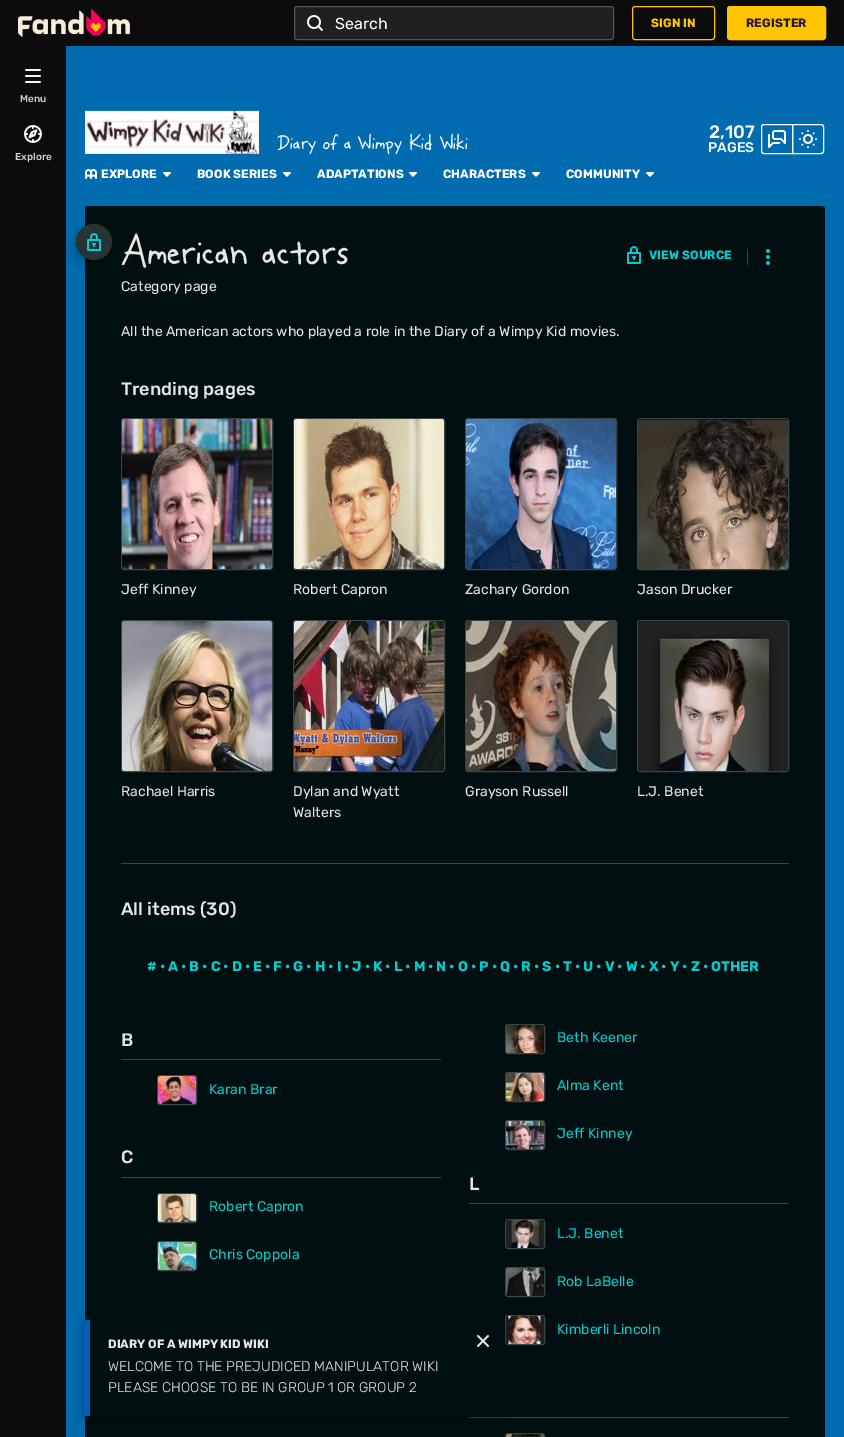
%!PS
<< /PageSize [844 1437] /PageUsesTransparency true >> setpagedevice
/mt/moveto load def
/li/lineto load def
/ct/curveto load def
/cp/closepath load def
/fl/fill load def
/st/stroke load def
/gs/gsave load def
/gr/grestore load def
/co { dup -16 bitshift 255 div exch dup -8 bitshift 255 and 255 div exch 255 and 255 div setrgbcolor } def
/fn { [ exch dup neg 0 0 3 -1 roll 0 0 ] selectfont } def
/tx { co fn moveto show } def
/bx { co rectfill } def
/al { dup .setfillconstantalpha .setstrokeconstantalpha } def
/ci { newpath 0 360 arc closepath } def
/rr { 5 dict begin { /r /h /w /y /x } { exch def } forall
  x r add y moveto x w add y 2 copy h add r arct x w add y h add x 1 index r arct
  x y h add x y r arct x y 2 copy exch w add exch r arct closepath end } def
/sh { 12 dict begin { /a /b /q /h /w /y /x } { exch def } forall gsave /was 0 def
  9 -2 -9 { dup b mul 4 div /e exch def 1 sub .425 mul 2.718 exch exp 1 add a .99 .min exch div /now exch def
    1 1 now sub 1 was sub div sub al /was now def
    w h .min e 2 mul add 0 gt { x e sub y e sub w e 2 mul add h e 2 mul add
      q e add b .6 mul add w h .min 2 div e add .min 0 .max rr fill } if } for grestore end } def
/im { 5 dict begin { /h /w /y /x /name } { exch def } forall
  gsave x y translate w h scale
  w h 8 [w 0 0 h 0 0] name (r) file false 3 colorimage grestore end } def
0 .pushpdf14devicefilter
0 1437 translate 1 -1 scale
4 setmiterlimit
0 0 844 1437 16#006BAF bx
0 0 844 46 16#0C0C0C bx
(media/1.raw) 18 9 112 28 im
16#211F21 co
294 6 320 34 3 rr fl
0.25 al
16#F5F3F5 co
294.5 6.5 319 33 2.5 rr st
1 al
(media/2.raw) 307 15 16 16 im
16#FFC500 co
632.5 6.5 82 33 2.5 rr st
727.5 6.5 98 33 2.5 rr gs fl gr
st
16#020F10 co
88 206 mt 822 206 li 823.5 206 825 207.5 825 209 ct 825 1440 li 85 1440 li 85 209 li 85 207.5 86.5 206 88 206 ct cp fl
16#000000 co
76 227 36 36 18 6 .3 sh
16#3B4546 co
505.5 1315.5 39 29 2.5 rr st
(media/29.raw) 506 1316 38 28 im
469 1417 320 1 16#3B4546 bx
505.5 1433.5 39 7 2.5 rr st
(media/30.raw) 506 1434 38 3 im
16#000000 co
84 1323 420 96 3 6 .3 sh
0 46 66 1391 16#0C0C0C bx
(media/3.raw) 25 69 16 14 im
(media/4.raw) 24 125 18 18 im
(media/5.raw) 85 110 174 44 im
16#FFFFFF co
764 124.5 mt 792.5 124.5 li 792.5 153.5 li 764 153.5 li 762.5 153.5 761.5 152.5 761.5 151 ct 761.5 127 li 761.5 125.5 762.5 124.5 764 124.5 ct cp st
(media/6.raw) 768 130 18 18 im
792.5 124.5 mt 821 124.5 li 822.5 124.5 823.5 125.5 823.5 127 ct 823.5 151 li 823.5 152.5 822.5 153.5 821 153.5 ct 792.5 153.5 li cp st
(media/7.raw) 799 130 18 18 im
(media/8.raw) 85 169 12 10 im
(media/9.raw) 163 172 8 5 im
(media/9.raw) 283 172 8 5 im
(media/9.raw) 409 172 8 5 im
(media/9.raw) 532 172 8 5 im
(media/9.raw) 646 172 8 5 im
16#283334 co
94 242 18 ci fl
(media/10.raw) 87 233 14 18 im
(media/11.raw) 627 246 14 18 im
747 249 1 16 16#3B4546 bx
(media/12.raw) 766 249 4 16 im
121 863 668 1 16#3B4546 bx
121.5 418.5 151 151 2.5 rr st
(media/13.raw) 122 419 150 150 im
293.5 418.5 151 151 2.5 rr st
(media/14.raw) 294 419 150 150 im
465.5 418.5 151 151 2.5 rr st
(media/15.raw) 466 419 150 150 im
637.5 418.5 151 151 2.5 rr st
(media/16.raw) 638 419 150 150 im
121.5 620.5 151 151 2.5 rr st
(media/17.raw) 122 621 150 150 im
293.5 620.5 151 151 2.5 rr st
(media/18.raw) 294 621 150 150 im
465.5 620.5 151 151 2.5 rr st
(media/19.raw) 466 621 150 150 im
637.5 620.5 151 151 2.5 rr st
(media/20.raw) 638 621 150 150 im
121 1059 320 1 16#3B4546 bx
157.5 1075.5 39 29 2.5 rr st
(media/21.raw) 158 1076 38 28 im
505.5 1024.5 39 29 2.5 rr st
(media/22.raw) 506 1025 38 28 im
505.5 1072.5 39 29 2.5 rr st
(media/23.raw) 506 1073 38 28 im
505.5 1120.5 39 29 2.5 rr st
(media/24.raw) 506 1121 38 28 im
121 1177 320 1 16#3B4546 bx
157.5 1193.5 39 29 2.5 rr st
(media/25.raw) 158 1194 38 28 im
157.5 1241.5 39 29 2.5 rr st
(media/26.raw) 158 1242 38 28 im
469 1203 320 1 16#3B4546 bx
505.5 1219.5 39 29 2.5 rr st
(media/27.raw) 506 1220 38 28 im
505.5 1267.5 39 29 2.5 rr st
(media/28.raw) 506 1268 38 28 im
16#020F10 co
84 1320 420 96 3 rr fl
16#005FB8 co
87 1320 mt 90 1320 li 90 1416 li 87 1416 li 85.5 1416 84 1414.5 84 1413 ct 84 1323 li 84 1321.5 85.5 1320 87 1320 ct cp fl
(media/31.raw) 477 1335 12 12 im
(Search) 335 29 /Rubik-Regular 16 16#FFFFFF tx
/Rubik-Bold 12 fn
16#FFC500 co
651 27 mt .1 0 (SIGN IN) ashow
16#291927 co
746 27 mt .1 0 (REGISTER) ashow
(Menu) 20 102 /Rubik-Medium 10 16#D6D0D5 tx
(Explore) 15 160 /Rubik-Medium 10 16#D6D0D5 tx
gs
277 132 192 22 rectclip
(Diary of a Wimpy Kid Wiki) 277 149 /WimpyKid-Medium 18 16#FFFFFF tx
gr
(2,107) 709 138 /Rubik-Medium 18 16#FFFFFF tx
(PAGES) 708 152 /Rubik-Medium 14 16#FFFFFF tx
(EXPLORE) 101 178 /Rubik-Bold 12 16#FFFFFF tx
(BOOK SERIES) 197 178 /Rubik-Bold 12 16#FFFFFF tx
(ADAPTATIONS) 317 178 /Rubik-Bold 12 16#FFFFFF tx
(CHARACTERS) 443 178 /Rubik-Bold 12 16#FFFFFF tx
(COMMUNITY) 566 178 /Rubik-Bold 12 16#FFFFFF tx
/WimpyKid-Medium 36 fn
16#E6E6E6 co
121 264 mt .25 0 (American actors) ashow
(Category page) 121 291 /Rubik-Regular 14 16#E6E6E6 tx
/Rubik-Bold 12 fn
16#00CDD0 co
649 259 mt .1 0 (VIEW SOURCE) ashow
(All the American actors who played a role in the Diary of a Wimpy Kid movies.) 121 336 /Rubik-Regular 14 16#E6E6E6 tx
(Trending pages) 121 395 /Rubik-Medium 18 16#E6E6E6 tx
(Jeff Kinney) 121 594 /Rubik-Regular 14 16#E6E6E6 tx
(Robert Capron) 293 594 /Rubik-Regular 14 16#E6E6E6 tx
(Zachary Gordon) 465 594 /Rubik-Regular 14 16#E6E6E6 tx
(Jason Drucker) 637 594 /Rubik-Regular 14 16#E6E6E6 tx
(Rachael Harris) 121 796 /Rubik-Regular 14 16#E6E6E6 tx
(Dylan and Wyatt) 293 796 /Rubik-Regular 14 16#E6E6E6 tx
(Walters) 293 817 /Rubik-Regular 14 16#E6E6E6 tx
(Grayson Russell) 465 796 /Rubik-Regular 14 16#E6E6E6 tx
(L.J. Benet) 637 796 /Rubik-Regular 14 16#E6E6E6 tx
(All items \(30\)) 121 915 /Rubik-Medium 18 16#E6E6E6 tx
(# • A • B • C • D • E • F • G • H • I • J • K • L • M • N • O • P • Q • R • S • T • U • V • W • X • Y • Z • OTHER) 147 971 /Rubik-Bold 14 16#00CDD0 tx
(B) 121 1046 /Rubik-Medium 18 16#E6E6E6 tx
(Karan Brar) 209 1094 /Rubik-Regular 14 16#00CDD0 tx
(Beth Keener) 557 1042 /Rubik-Regular 14 16#00CDD0 tx
(Alma Kent) 557 1090 /Rubik-Regular 14 16#00CDD0 tx
(Jeff Kinney) 557 1138 /Rubik-Regular 14 16#00CDD0 tx
(C) 121 1163 /Rubik-Medium 18 16#E6E6E6 tx
(Robert Capron) 209 1211 /Rubik-Regular 14 16#00CDD0 tx
(Chris Coppola) 209 1259 /Rubik-Regular 14 16#00CDD0 tx
(L) 469 1190 /Rubik-Medium 18 16#E6E6E6 tx
(L.J. Benet) 557 1238 /Rubik-Regular 14 16#00CDD0 tx
(Rob LaBelle) 557 1286 /Rubik-Regular 14 16#00CDD0 tx
(Kimberli Lincoln) 557 1334 /Rubik-Regular 14 16#00CDD0 tx
(DIARY OF A WIMPY KID WIKI) 108 1348 /Rubik-Bold 12 16#E6E6E6 tx
(WELCOME TO THE PREJUDICED MANIPULATOR WIKI) 108 1371 /Rubik-Light 14 16#E6E6E6 tx
(PLEASE CHOOSE TO BE IN GROUP 1 OR GROUP 2) 108 1392 /Rubik-Light 14 16#E6E6E6 tx
.poppdf14devicefilter showpage
